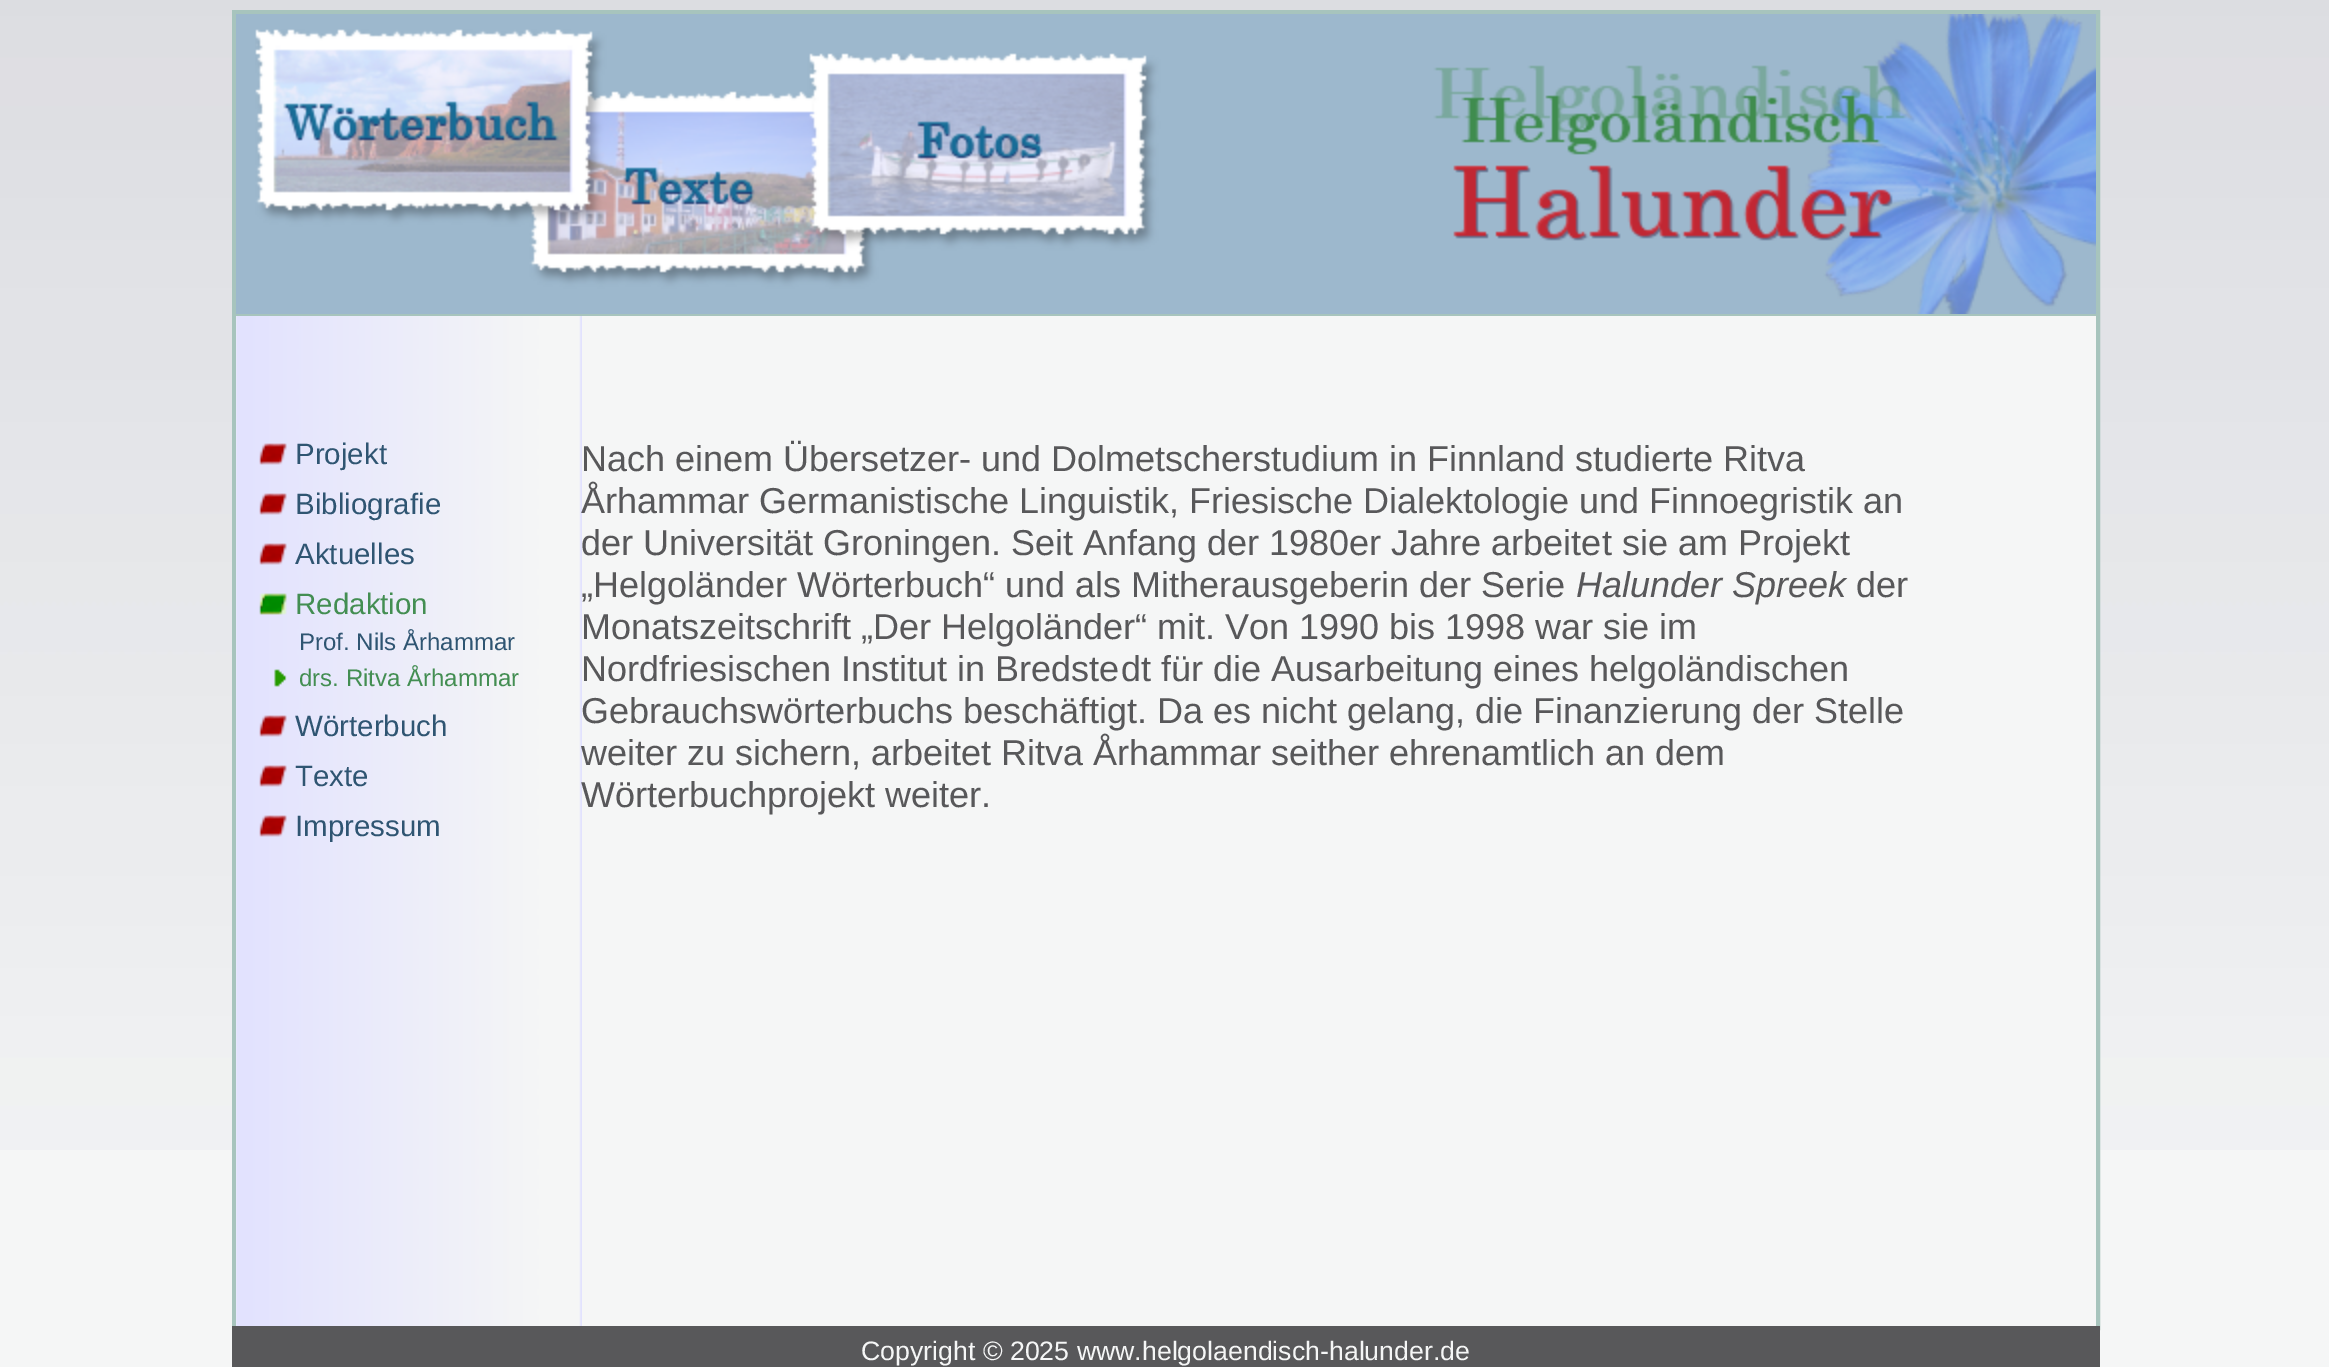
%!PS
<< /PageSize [2329 1367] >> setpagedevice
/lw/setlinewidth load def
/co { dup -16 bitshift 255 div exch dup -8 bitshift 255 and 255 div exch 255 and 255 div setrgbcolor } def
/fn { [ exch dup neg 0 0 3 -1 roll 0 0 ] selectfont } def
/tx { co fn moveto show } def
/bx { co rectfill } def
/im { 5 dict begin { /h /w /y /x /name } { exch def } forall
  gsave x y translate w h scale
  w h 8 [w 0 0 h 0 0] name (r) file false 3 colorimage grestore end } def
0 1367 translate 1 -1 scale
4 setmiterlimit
0 0 2329 1367 16#F5F6F6 bx
(media/1.raw) 0 0 2329 1150 im
582 316 1514 834 16#F5F6F6 bx
16#A7C4BD co
4 lw
234 12 1864 1316 rectstroke
236 14 19 300 16#9DB8CD bx
(media/2.raw) 255 14 1841 300 im
(media/6.raw) 236 316 346 1010 im
(media/3.raw) 259 443 28 22 im
(media/3.raw) 259 493 28 22 im
(media/3.raw) 259 543 28 22 im
(media/4.raw) 259 593 28 22 im
(media/5.raw) 274 669 13 18 im
(media/3.raw) 259 715 28 22 im
(media/3.raw) 259 765 28 22 im
(media/3.raw) 259 815 28 22 im
236 314 1860 2 16#A7C4BD bx
232 1326 1868 41 16#58585A bx
(Projekt) 295 464 /LiberationSans-Regular 29.5 16#2F5572 tx
(Bibliografie) 295 514 /LiberationSans-Regular 29.5 16#2F5572 tx
(Aktuelles) 295 564 /LiberationSans-Regular 29.5 16#2F5572 tx
(Redaktion) 295 614 /LiberationSans-Regular 29.5 16#438E52 tx
(Prof. Nils Århammar) 299 650 /LiberationSans-Regular 24 16#2F5572 tx
(drs. Ritva Århammar) 299 686 /LiberationSans-Regular 24 16#438E52 tx
(Wörterbuch) 295 736 /LiberationSans-Regular 29.5 16#2F5572 tx
(Texte) 295 786 /LiberationSans-Regular 29.5 16#2F5572 tx
(Impressum) 295 836 /LiberationSans-Regular 29.5 16#2F5572 tx
(Nach einem Übersetzer- und Dolmetscherstudium in Finnland studierte Ritva) 581 471 /LiberationSans-Regular 36 16#58585A tx
(Århammar Germanistische Linguistik, Friesische Dialektologie und Finnoegristik an) 581 513 /LiberationSans-Regular 36 16#58585A tx
(der Universität Groningen. Seit Anfang der 1980er Jahre arbeitet sie am Projekt) 581 555 /LiberationSans-Regular 36 16#58585A tx
(„Helgoländer Wörterbuch“ und als Mitherausgeberin der Serie) 581 597 /LiberationSans-Regular 36 16#58585A tx
(Halunder Spreek) 1576 597 /LiberationSans-Italic 36 16#58585A tx
(der) 1856 597 /LiberationSans-Regular 36 16#58585A tx
(Monatszeitschrift „Der Helgoländer“ mit. Von 1990 bis 1998 war sie im) 581 639 /LiberationSans-Regular 36 16#58585A tx
(Nordfriesischen Institut in Bredste) 581 681 /LiberationSans-Regular 36 16#58585A tx
(dt für die Ausarbeitung eines helgoländischen) 1121 681 /LiberationSans-Regular 36 16#58585A tx
(Gebrauchswörterbuchs beschäftigt. Da es nicht gelang, die Finanzierung der Stelle) 581 723 /LiberationSans-Regular 36 16#58585A tx
(weiter zu sichern, arbeitet Ritva Århammar seither ehrenamtlich an dem) 581 765 /LiberationSans-Regular 36 16#58585A tx
(Wörterbuchprojekt weiter.) 581 807 /LiberationSans-Regular 36 16#58585A tx
(Copyright © 2025 www.helgolaendisch-halunder.de) 861 1360 /LiberationSans-Regular 26.7 16#F5F6F6 tx
showpage
